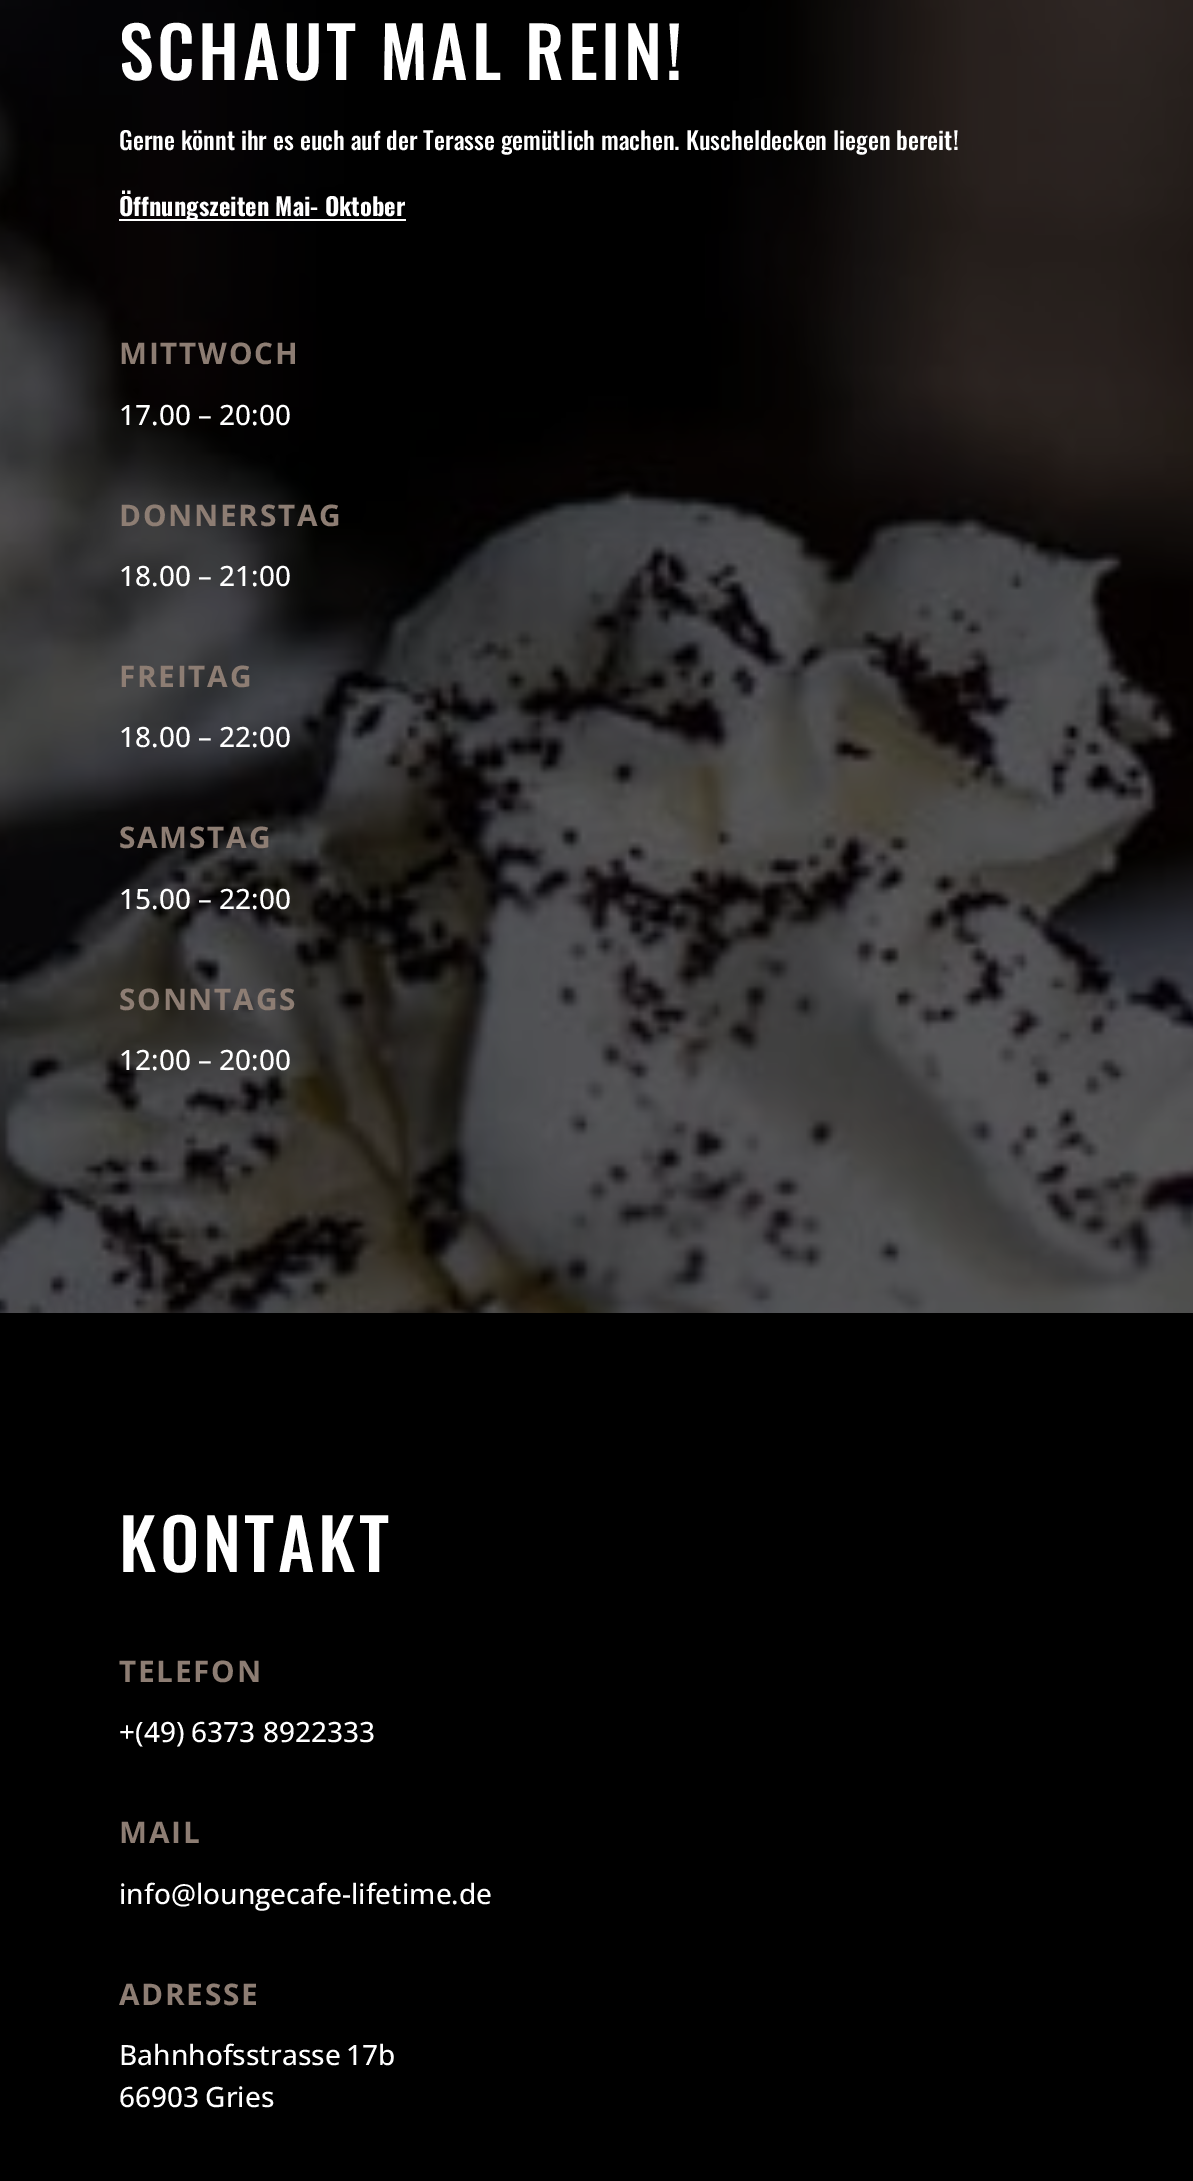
%!PS
<< /PageSize [1193 2181] /PageUsesTransparency true >> setpagedevice
/mt/moveto load def
/co { dup -16 bitshift 255 div exch dup -8 bitshift 255 and 255 div exch 255 and 255 div setrgbcolor } def
/fn { [ exch dup neg 0 0 3 -1 roll 0 0 ] selectfont } def
/tx { co fn moveto show } def
/bx { co rectfill } def
/al { dup .setfillconstantalpha .setstrokeconstantalpha } def
/im { 5 dict begin { /h /w /y /x /name } { exch def } forall
  gsave x y translate w h scale
  w h 8 [w 0 0 h 0 0] name (r) file false 3 colorimage grestore end } def
0 .pushpdf14devicefilter
0 2181 translate 1 -1 scale
4 setmiterlimit
0 0 1193 2181 16#FFFFFF bx
(media/1.raw) 0 0 1193 1313 im
0.6 al
0 0 1193 1313 16#000000 bx
1 al
119 219 287 2 16#FFFFFF bx
0 1313 1193 868 16#000000 bx
/Oswald-Medium 70 fn
16#FFFFFF co
119 80 mt 3.5 0 (SCHAUT MAL REIN!) ashow
(Gerne könnt ihr es euch auf der Terasse gemütlich machen. Kuscheldecken liegen bereit!) 119 150 /Oswald-Medium 24.5 16#FFFFFF tx
(Öffnungszeiten Mai- Oktober) 119 216 /Oswald-Bold 24.5 16#FFFFFF tx
/OpenSans-Bold 29.75 fn
16#8D7D73 co
119 364 mt 1.75 0 (MITTWOCH) ashow
(17.00 – 20:00) 119 425 /OpenSans-Medium 28 16#FFFFFF tx
/OpenSans-Bold 29.75 fn
16#8D7D73 co
119 526 mt 1.75 0 (DONNERSTAG) ashow
(18.00 – 21:00) 119 586 /OpenSans-Medium 28 16#FFFFFF tx
/OpenSans-Bold 29.75 fn
16#8D7D73 co
119 687 mt 1.75 0 (FREITAG) ashow
(18.00 – 22:00) 119 747 /OpenSans-Medium 28 16#FFFFFF tx
/OpenSans-Bold 29.75 fn
16#8D7D73 co
119 848 mt 1.75 0 (SAMSTAG) ashow
(15.00 – 22:00) 119 909 /OpenSans-Medium 28 16#FFFFFF tx
/OpenSans-Bold 29.75 fn
16#8D7D73 co
119 1010 mt 1.75 0 (SONNTAGS) ashow
(12:00 – 20:00) 119 1070 /OpenSans-Medium 28 16#FFFFFF tx
/Oswald-Medium 70 fn
119 1572 mt 3.5 0 (KONTAKT) ashow
/OpenSans-Bold 29.75 fn
16#8D7D73 co
119 1682 mt 1.75 0 (TELEFON) ashow
(+\(49\) 6373 8922333) 119 1742 /OpenSans-Medium 28 16#FFFFFF tx
/OpenSans-Bold 29.75 fn
16#8D7D73 co
119 1843 mt 1.75 0 (MAIL) ashow
(info@loungecafe-lifetime.de) 119 1904 /OpenSans-Medium 28 16#FFFFFF tx
/OpenSans-Bold 29.75 fn
16#8D7D73 co
119 2005 mt 1.75 0 (ADRESSE) ashow
/OpenSans-Medium 28 fn
16#FFFFFF co
119 2065 mt -2 0 32 (Bahnhofsstrasse 17b) widthshow
119 2107 mt -1 0 32 (66903 Gries) widthshow
.poppdf14devicefilter showpage
